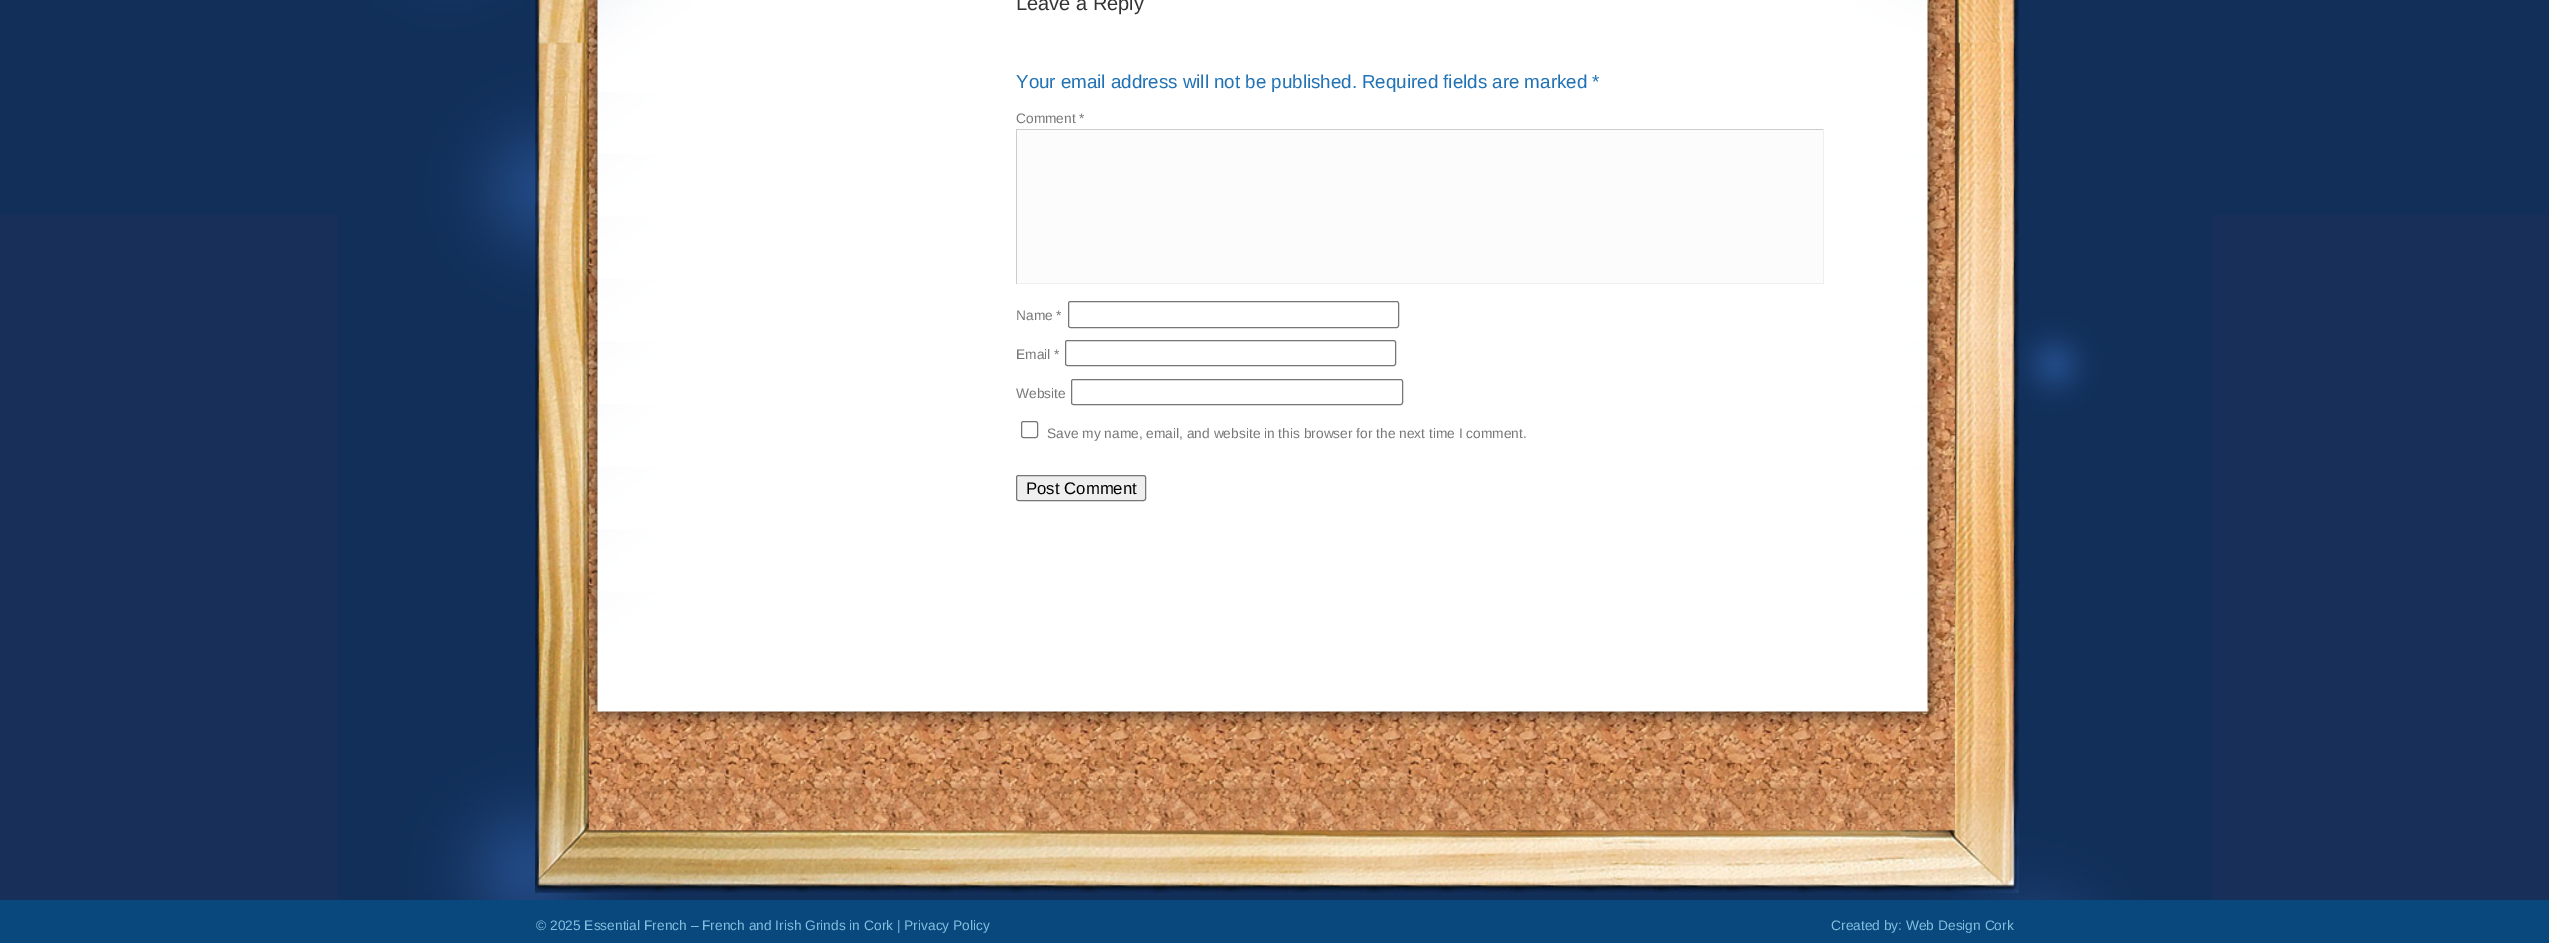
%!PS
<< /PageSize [2549 943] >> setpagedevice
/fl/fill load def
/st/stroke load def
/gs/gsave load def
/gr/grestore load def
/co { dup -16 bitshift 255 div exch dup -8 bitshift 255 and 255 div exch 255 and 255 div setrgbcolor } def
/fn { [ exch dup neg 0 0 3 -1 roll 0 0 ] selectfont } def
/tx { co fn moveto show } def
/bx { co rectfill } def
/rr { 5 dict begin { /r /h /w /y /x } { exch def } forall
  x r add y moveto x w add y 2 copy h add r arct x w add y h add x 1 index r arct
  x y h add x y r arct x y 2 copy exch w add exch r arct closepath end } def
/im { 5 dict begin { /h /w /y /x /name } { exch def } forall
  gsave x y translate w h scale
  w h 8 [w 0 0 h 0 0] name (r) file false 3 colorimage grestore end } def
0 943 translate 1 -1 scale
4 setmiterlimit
0 0 2549 943 16#172F59 bx
0 0 2549 215 16#122F59 bx
(media/1.raw) 338 0 1874 900 im
(media/2.raw) 535 0 1484 831 im
(media/3.raw) 583 654 1359 74 im
(media/4.raw) 583 0 1359 29 im
(media/5.raw) 582 29 1361 625 im
1017 130 806 153 16#FCFCFC bx
1016 129 808 1 16#CCCCCC bx
1823 129 1 155 16#EFEFEF bx
1016 283 808 1 16#EFEFEF bx
1016 129 1 155 16#CCCCCC bx
16#767676 co
1068.5 301.5 330 26 2 rr st
1065.5 340.5 330 25 2 rr st
1071.5 379.5 331 25 2 rr st
1021.5 421.5 16 16 2 rr st
16#EFEFEF co
1016.5 475.5 129 25 2 rr gs fl gr
16#767676 co
st
(media/6.raw) 535 780 1484 113 im
0 900 2549 43 16#09487C bx
(Leave a Reply) 1016 10 /LiberationSans-Regular 20 16#333333 tx
(Your email address will not be published. Required fields are marked *) 1016 88 /LiberationSans-Regular 18.75 16#2273B6 tx
(Comment *) 1016 123 /LiberationSans-Regular 13.75 16#777777 tx
(Name *) 1016 320 /LiberationSans-Regular 13.75 16#777777 tx
(Email *) 1016 359 /LiberationSans-Regular 13.75 16#777777 tx
(Website) 1016 398 /LiberationSans-Regular 13.75 16#777777 tx
(Save my name, email, and website in this browser for the next time I comment.) 1047 438 /LiberationSans-Regular 13.75 16#777777 tx
(Post Comment) 1026 494 /LiberationSans-Regular 16.75 16#000000 tx
(© 2025 Essential French – French and Irish Grinds in Cork | Privacy Policy) 536 930 /LiberationSans-Regular 13.75 16#83BFE1 tx
(Created by: Web Design Cork) 1831 930 /LiberationSans-Regular 13.75 16#83BFE1 tx
showpage
